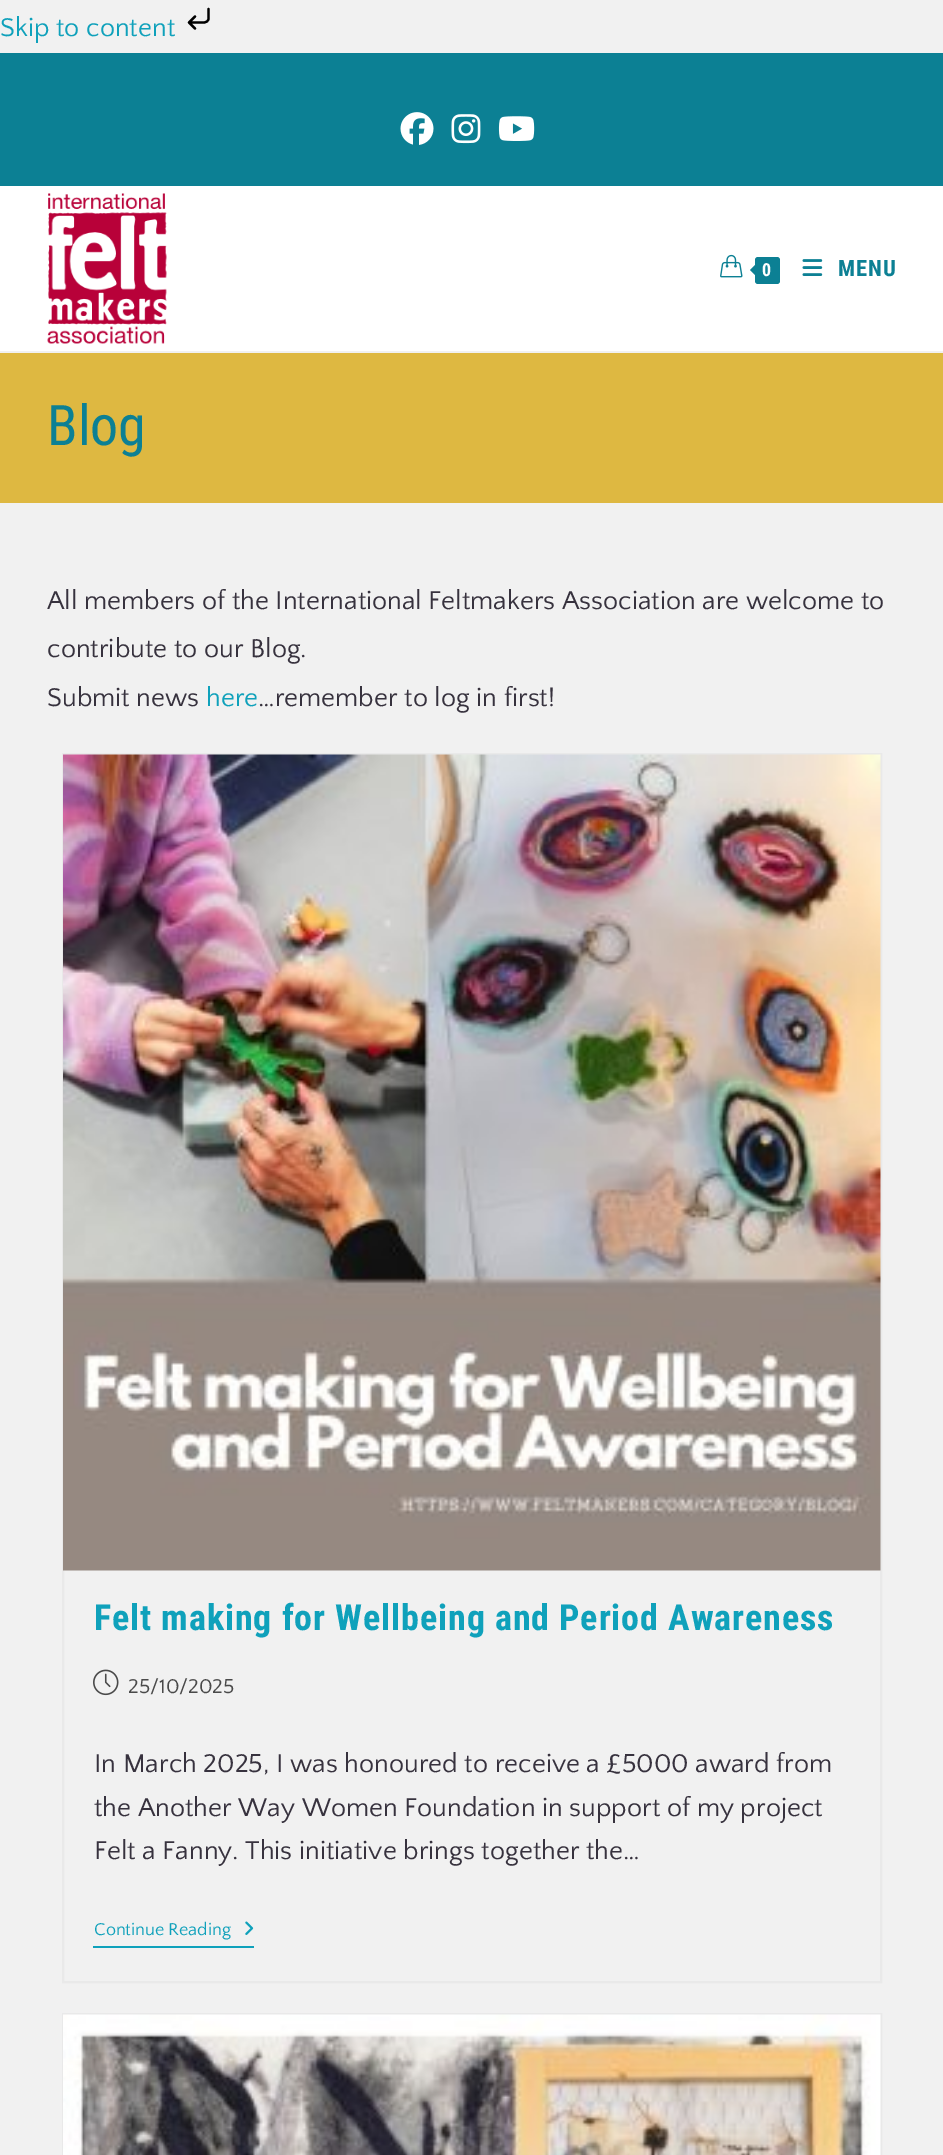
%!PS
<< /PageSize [943 2155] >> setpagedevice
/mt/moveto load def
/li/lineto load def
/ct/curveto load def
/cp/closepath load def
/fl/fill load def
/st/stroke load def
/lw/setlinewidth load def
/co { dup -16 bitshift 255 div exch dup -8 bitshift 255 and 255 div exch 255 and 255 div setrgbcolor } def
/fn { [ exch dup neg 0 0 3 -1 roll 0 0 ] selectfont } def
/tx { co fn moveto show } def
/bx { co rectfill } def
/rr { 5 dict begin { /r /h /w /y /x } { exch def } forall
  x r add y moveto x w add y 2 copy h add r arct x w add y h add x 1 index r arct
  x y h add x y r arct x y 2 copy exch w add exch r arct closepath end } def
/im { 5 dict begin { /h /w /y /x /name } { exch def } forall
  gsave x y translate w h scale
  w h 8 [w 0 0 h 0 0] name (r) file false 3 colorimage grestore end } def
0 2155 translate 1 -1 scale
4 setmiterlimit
0 0 943 2155 16#F1F1F1 bx
16#000000 co
2.2 lw
1 setlinecap
1 setlinejoin
208.5 9 mt 208.5 19 li 207.5 23.5 202.5 22.5 199 22.5 ct 189 22.5 li 189 22.5 mt 195 16.5 li 189 22.5 mt 195 28.5 li st
0 53 943 133 16#0C8094 bx
(media/1.raw) 400 112 34 33 im
(media/2.raw) 451 114 30 30 im
(media/3.raw) 498 116 37 25 im
0 186 943 165 16#FFFFFF bx
(media/4.raw) 47 193 120 151 im
(media/5.raw) 720 254 23 24 im
16#0C8094 co
755 257 25 27 3 rr fl
757.5 262.5 mt 757.5 277.5 li 750 270 li cp fl
(media/6.raw) 802 259 21 17 im
0 353 943 150 16#DEB841 bx
16#E9E9E9 co
2 lw
0 setlinecap
0 setlinejoin
63 754 818 1228 rectstroke
(media/7.raw) 63 754 818 817 im
(media/8.raw) 93 1669 26 27 im
93 1946 161 2 16#0FA1BB bx
(media/9.raw) 245 1921 9 14 im
16#E9E9E9 co
63 2014 818 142 rectstroke
(media/10.raw) 63 2014 818 141 im
(Skip to content) 0 36 /QuattrocentoSans-Regular 27 16#0FA1BB tx
/RobotoCondensed-Bold 18 fn
16#FFFFFF co
762 276 mt .9 0 (0) ashow
/RobotoCondensed-Bold 22.5 fn
16#0C8094 co
838 276 mt .9 0 (MENU) ashow
(Blog) 47 445 /RobotoCondensed-Regular 56 16#0C8094 tx
(All members of the International Feltmakers Association are welcome to) 47 609 /QuattrocentoSans-Regular 27 16#37323E tx
(contribute to our Blog.) 47 657 /QuattrocentoSans-Regular 27 16#37323E tx
(Submit news) 47 706 /QuattrocentoSans-Regular 27 16#37323E tx
(here) 206 706 /QuattrocentoSans-Regular 27 16#0FA1BB tx
(…remember to log in first!) 258 706 /QuattrocentoSans-Regular 27 16#37323E tx
/RobotoCondensed-Bold 36 fn
16#0FA1BB co
94 1630 mt .9 0 (Felt making for Wellbeing and Period Awareness) ashow
(25/10/2025) 128 1693 /QuattrocentoSans-Regular 21 16#4A4A4A tx
(In March 2025, I was honoured to receive a £5000 award from) 94 1772 /QuattrocentoSans-Regular 27 16#37323E tx
(the Another Way Women Foundation in support of my project) 94 1816 /QuattrocentoSans-Regular 27 16#37323E tx
(Felt a Fanny. This initiative brings together the…) 94 1859 /QuattrocentoSans-Regular 27 16#37323E tx
(Continue Reading) 94 1935 /QuattrocentoSans-Regular 18 16#0FA1BB tx
showpage
